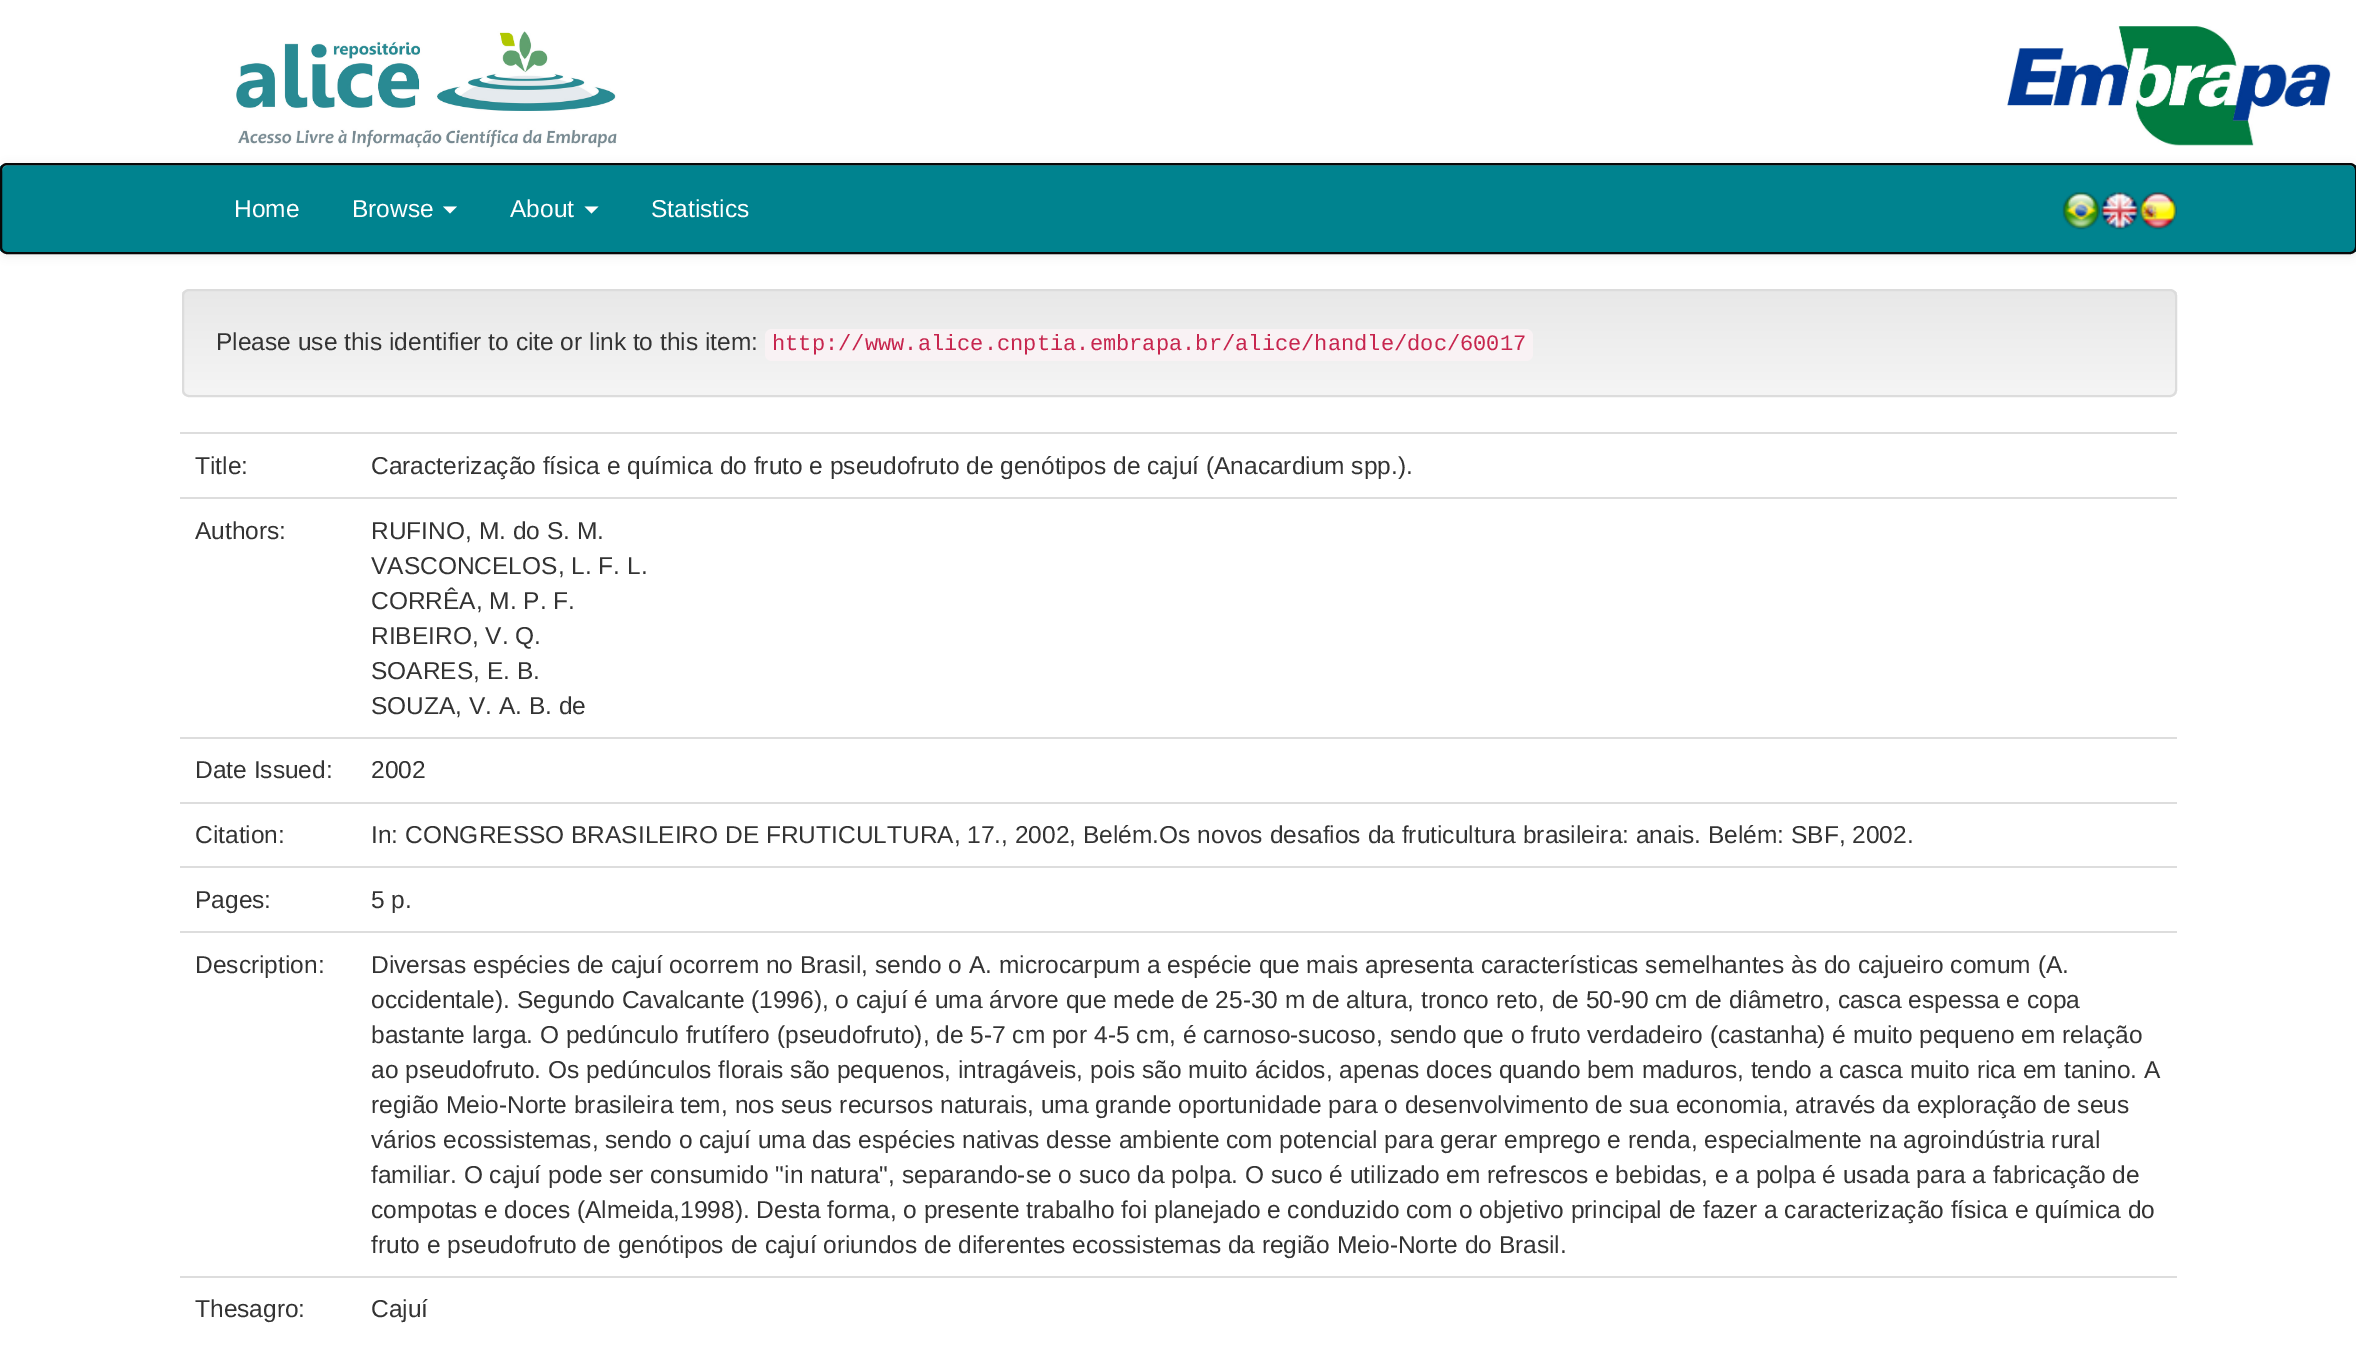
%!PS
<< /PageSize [2356 1345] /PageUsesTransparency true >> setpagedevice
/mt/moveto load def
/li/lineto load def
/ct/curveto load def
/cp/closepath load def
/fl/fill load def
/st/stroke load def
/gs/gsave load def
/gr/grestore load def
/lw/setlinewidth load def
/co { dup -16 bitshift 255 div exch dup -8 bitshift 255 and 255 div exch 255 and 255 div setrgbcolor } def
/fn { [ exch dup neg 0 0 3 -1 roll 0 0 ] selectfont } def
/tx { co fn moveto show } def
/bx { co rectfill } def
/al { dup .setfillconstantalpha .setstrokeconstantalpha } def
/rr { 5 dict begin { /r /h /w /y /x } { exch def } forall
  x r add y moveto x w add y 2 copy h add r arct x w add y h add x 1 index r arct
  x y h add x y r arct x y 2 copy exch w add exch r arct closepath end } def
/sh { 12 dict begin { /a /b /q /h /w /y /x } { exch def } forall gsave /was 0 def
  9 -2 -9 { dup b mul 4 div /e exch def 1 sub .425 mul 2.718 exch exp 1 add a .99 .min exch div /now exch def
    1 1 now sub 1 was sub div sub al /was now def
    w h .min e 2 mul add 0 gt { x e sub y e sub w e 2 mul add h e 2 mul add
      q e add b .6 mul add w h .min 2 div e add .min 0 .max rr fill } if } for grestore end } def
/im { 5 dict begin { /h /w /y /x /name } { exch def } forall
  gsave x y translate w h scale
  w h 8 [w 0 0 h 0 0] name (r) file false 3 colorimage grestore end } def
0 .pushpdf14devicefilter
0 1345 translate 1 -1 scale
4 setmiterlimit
0 0 2356 1345 16#FFFFFF bx
(media/1.raw) 236 31 381 117 im
(media/2.raw) 2007 26 324 120 im
16#000000 co
0 165 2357 91 7 4.5 .07 sh
gs
0 163 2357 91 7 rr clip newpath
0 165 2356 87 16#00838F bx
gr
16#2696A0 co
7 166 mt 2350 166 li 2353 166 2356 169 2356 172 ct 2356 170 li 2356 167 2354 165 2351 165 ct 7 165 li 4 165 2 167 2 170 ct 2 172 li 2 169 4 166 7 166 ct cp fl
16#080808 co
2 lw
1 164 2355 89 6 rr st
16#FFFFFF co
443 206.5 mt 457 206.5 li 450 213.5 li cp fl
584.5 206.5 mt 598.5 206.5 li 591.5 213.5 li cp fl
(media/3.raw) 2062 192 38 38 im
(media/4.raw) 2101 192 38 38 im
(media/5.raw) 2139 192 38 38 im
gs
182 289 1995 108 7 rr clip newpath
gs 182 291 mt 2177 291 li 2177 396 li 182 396 li cp clip newpath
<< /ShadingType 2 /ColorSpace /DeviceRGB /Coords [1180 290 1180 396] /Extend [true true] /Function << /FunctionType 2 /Domain [0 1] /C0 [.91 .91 .91] /C1 [.961 .961 .961] /N 1 >> >> shfill gr
gr
16#DCDCDC co
183 290 1993 106 6 rr st
16#F9F2F4 co
765 329 768 32 7 rr fl
180 432 1997 2 16#DDDDDD bx
180 497 1997 2 16#DDDDDD bx
180 737 1997 2 16#DDDDDD bx
180 802 1997 2 16#DDDDDD bx
180 866 1997 2 16#DDDDDD bx
180 931 1997 2 16#DDDDDD bx
180 1276 1997 2 16#DDDDDD bx
(Home) 234 217 /LiberationSans-Regular 24.5 16#FFFFFF tx
(Browse) 352 217 /LiberationSans-Regular 24.5 16#FFFFFF tx
(About) 510 217 /LiberationSans-Regular 24.5 16#FFFFFF tx
(Statistics) 651 217 /LiberationSans-Regular 24.5 16#FFFFFF tx
(Please use this identifier to cite or link to this item:) 216 350 /LiberationSans-Regular 24.5 16#333333 tx
(http://www.alice.cnptia.embrapa.br/alice/handle/doc/60017) 772 350 /LiberationMono-Regular 22.05 16#C7254E tx
(Title:) 195 474 /LiberationSans-Regular 24.5 16#333333 tx
(Caracterização física e química do fruto e pseudofruto de genótipos de cajuí \(Anacardium spp.\).) 371 474 /LiberationSans-Regular 24.5 16#333333 tx
(Authors:) 195 539 /LiberationSans-Regular 24.5 16#333333 tx
(RUFINO, M. do S. M.) 371 539 /LiberationSans-Regular 24.5 16#333333 tx
(VASCONCELOS, L. F. L.) 371 574 /LiberationSans-Regular 24.5 16#333333 tx
(CORRÊA, M. P. F.) 371 609 /LiberationSans-Regular 24.5 16#333333 tx
(RIBEIRO, V. Q.) 371 644 /LiberationSans-Regular 24.5 16#333333 tx
(SOARES, E. B.) 371 679 /LiberationSans-Regular 24.5 16#333333 tx
(SOUZA, V. A. B. de) 371 714 /LiberationSans-Regular 24.5 16#333333 tx
(Date Issued:) 195 778 /LiberationSans-Regular 24.5 16#333333 tx
(2002) 371 778 /LiberationSans-Regular 24.5 16#333333 tx
(Citation:) 195 843 /LiberationSans-Regular 24.5 16#333333 tx
(In: CONGRESSO BRASILEIRO DE FRUTICULTURA, 17., 2002, Belém.Os novos desafios da fruticultura brasileira: anais. Belém: SBF, 2002.) 371 843 /LiberationSans-Regular 24.5 16#333333 tx
(Pages:) 195 908 /LiberationSans-Regular 24.5 16#333333 tx
(5 p.) 371 908 /LiberationSans-Regular 24.5 16#333333 tx
(Description:) 195 973 /LiberationSans-Regular 24.5 16#333333 tx
(Diversas espécies de cajuí ocorrem no Brasil, sendo o A. microcarpum a espécie que mais apresenta características semelhantes às do cajueiro comum \(A.) 371 973 /LiberationSans-Regular 24.5 16#333333 tx
(occidentale\). Segundo Cavalcante \(1996\), o cajuí é uma árvore que mede de 25-30 m de altura, tronco reto, de 50-90 cm de diâmetro, casca espessa e copa) 371 1008 /LiberationSans-Regular 24.5 16#333333 tx
(bastante larga. O pedúnculo frutífero \(pseudofruto\), de 5-7 cm por 4-5 cm, é carnoso-sucoso, sendo que o fruto verdadeiro \(castanha\) é muito pequeno em relação) 371 1043 /LiberationSans-Regular 24.5 16#333333 tx
(ao pseudofruto. Os pedúnculos florais são pequenos, intragáveis, pois são muito ácidos, apenas doces quando bem maduros, tendo a casca muito rica em tanino. A) 371 1078 /LiberationSans-Regular 24.5 16#333333 tx
(região Meio-Norte brasileira tem, nos seus recursos naturais, uma grande oportunidade para o desenvolvimento de sua economia, através da exploração de seus) 371 1113 /LiberationSans-Regular 24.5 16#333333 tx
(vários ecossistemas, sendo o cajuí uma das espécies nativas desse ambiente com potencial para gerar emprego e renda, especialmente na agroindústria rural) 371 1148 /LiberationSans-Regular 24.5 16#333333 tx
(familiar. O cajuí pode ser consumido "in natura", separando-se o suco da polpa. O suco é utilizado em refrescos e bebidas, e a polpa é usada para a fabricação de) 371 1183 /LiberationSans-Regular 24.5 16#333333 tx
(compotas e doces \(Almeida,1998\). Desta forma, o presente trabalho foi planejado e conduzido com o objetivo principal de fazer a caracterização física e química do) 371 1218 /LiberationSans-Regular 24.5 16#333333 tx
(fruto e pseudofruto de genótipos de cajuí oriundos de diferentes ecossistemas da região Meio-Norte do Brasil.) 371 1253 /LiberationSans-Regular 24.5 16#333333 tx
(Thesagro:) 195 1317 /LiberationSans-Regular 24.5 16#333333 tx
(Cajuí) 371 1317 /LiberationSans-Regular 24.5 16#333333 tx
.poppdf14devicefilter showpage
